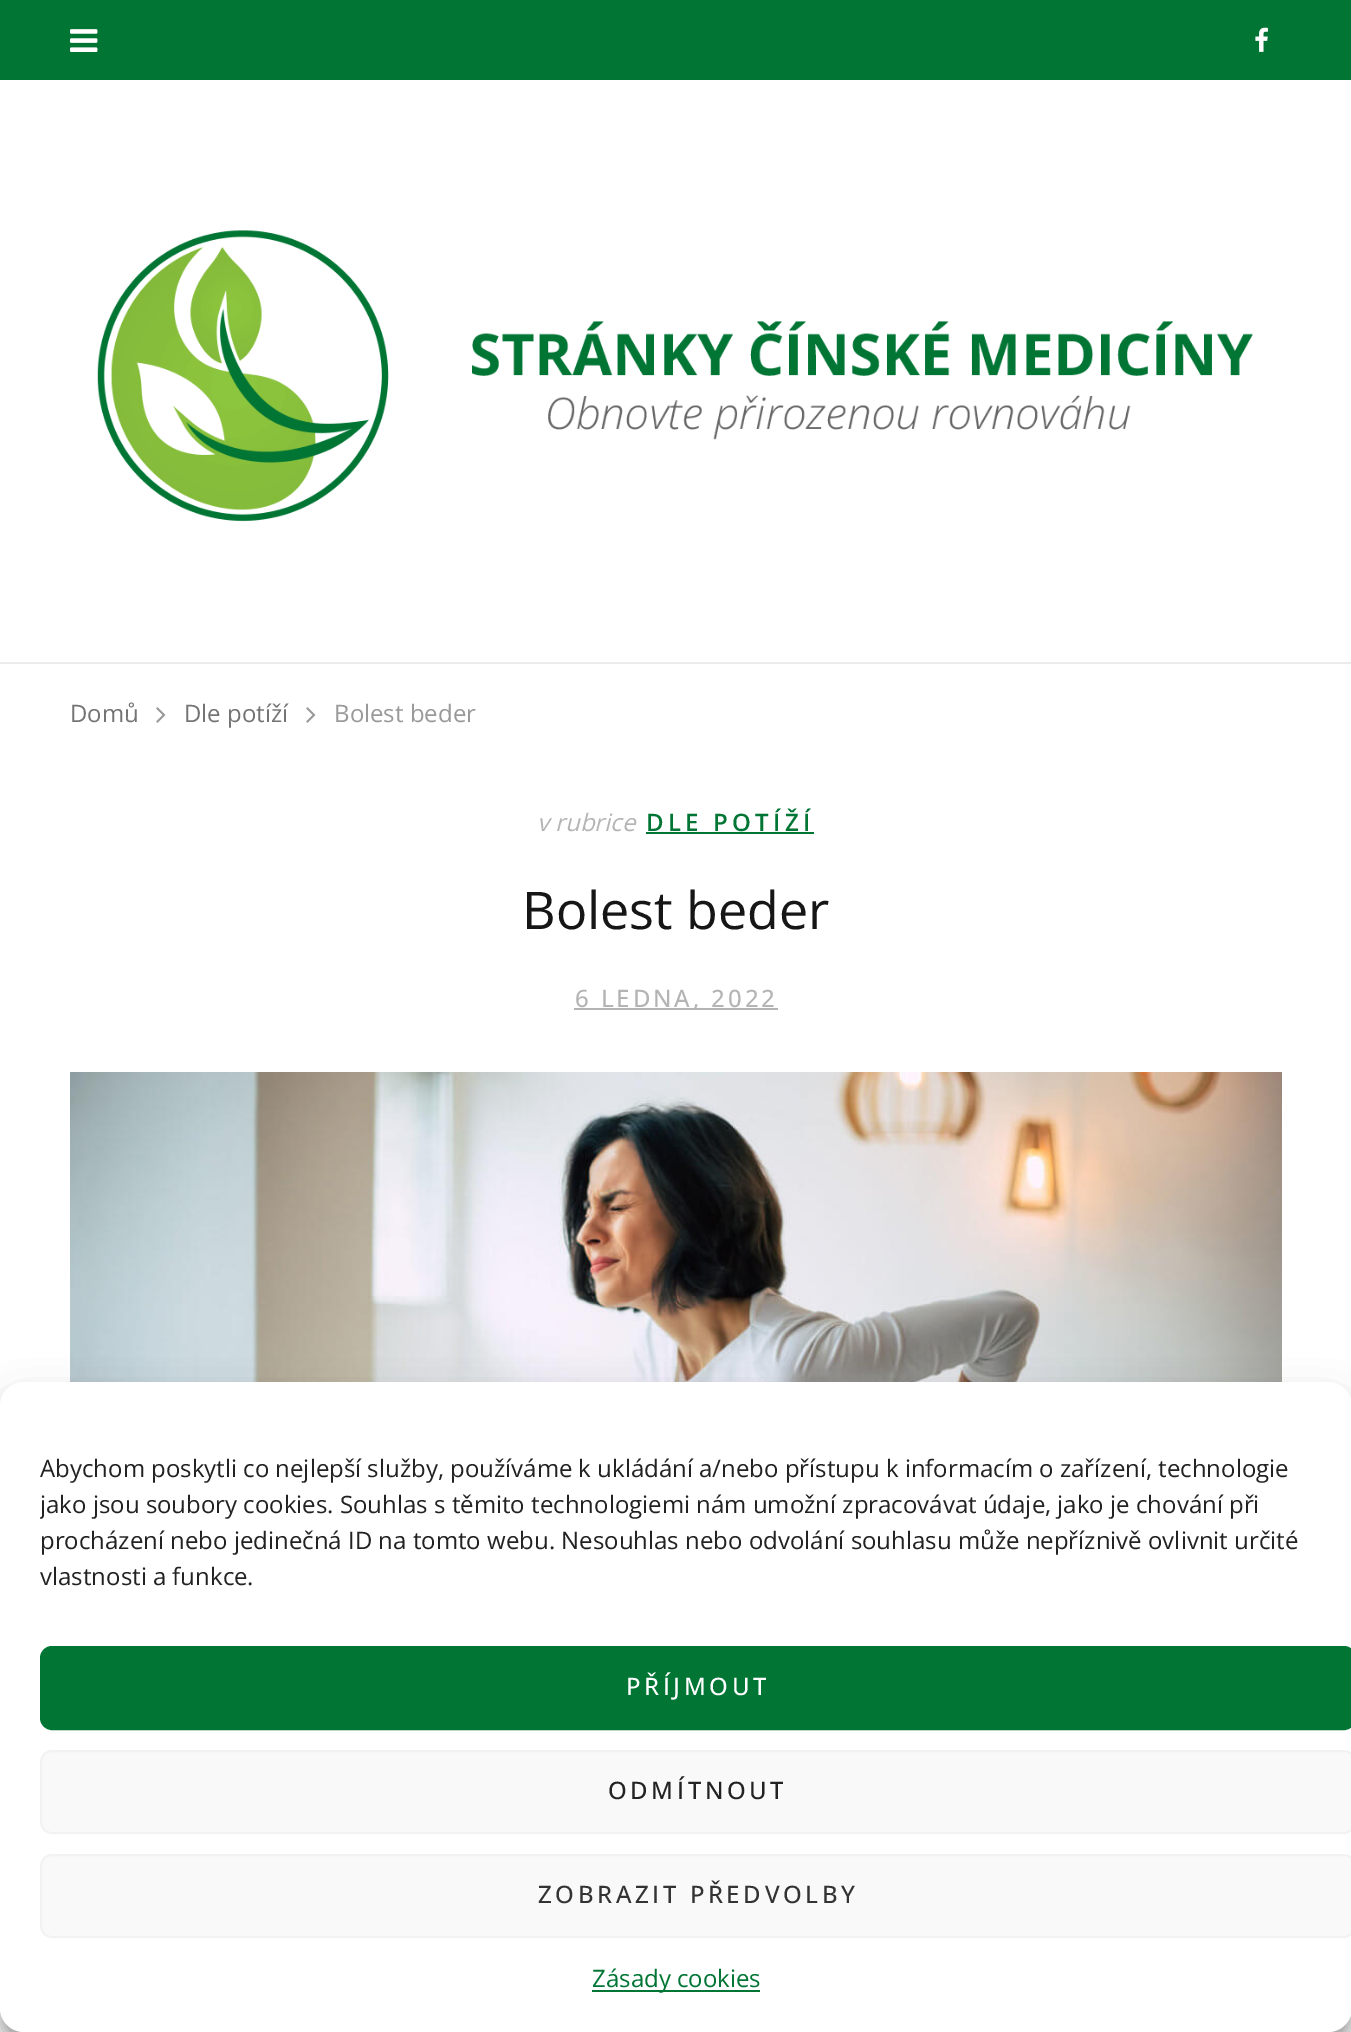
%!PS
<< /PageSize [1351 2032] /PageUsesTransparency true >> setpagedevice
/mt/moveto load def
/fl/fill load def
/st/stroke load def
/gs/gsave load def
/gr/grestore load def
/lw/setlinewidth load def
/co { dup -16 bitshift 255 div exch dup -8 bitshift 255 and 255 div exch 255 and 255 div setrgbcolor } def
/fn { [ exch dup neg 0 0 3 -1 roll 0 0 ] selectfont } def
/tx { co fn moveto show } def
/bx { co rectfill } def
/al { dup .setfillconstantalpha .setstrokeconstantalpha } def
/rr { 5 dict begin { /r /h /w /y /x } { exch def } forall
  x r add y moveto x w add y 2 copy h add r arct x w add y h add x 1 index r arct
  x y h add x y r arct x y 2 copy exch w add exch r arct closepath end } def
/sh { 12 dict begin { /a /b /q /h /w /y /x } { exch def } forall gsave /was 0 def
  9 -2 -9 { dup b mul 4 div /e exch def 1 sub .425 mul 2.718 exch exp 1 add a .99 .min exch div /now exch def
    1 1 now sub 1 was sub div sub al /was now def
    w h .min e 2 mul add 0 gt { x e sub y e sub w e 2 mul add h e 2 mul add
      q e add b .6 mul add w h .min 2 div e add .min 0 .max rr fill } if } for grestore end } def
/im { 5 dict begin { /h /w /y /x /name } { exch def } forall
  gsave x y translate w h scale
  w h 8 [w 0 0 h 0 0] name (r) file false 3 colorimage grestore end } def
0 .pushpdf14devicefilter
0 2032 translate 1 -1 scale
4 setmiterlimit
0 0 1351 2032 16#FFFFFF bx
0 662 1351 2 16#EBEBEB bx
0 0 1351 80 16#007534 bx
(media/1.raw) 70 29 28 23 im
(media/2.raw) 1255 27 13 25 im
(media/3.raw) 97 230 1156 292 im
(media/4.raw) 156 707 10 16 im
(media/4.raw) 306 707 10 16 im
646 832 168 2 16#007534 bx
574 1008 204 2 16#B4B4B4 bx
(media/5.raw) 70 1072 1212 310 im
16#000000 co
0 1394 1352 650 24 6 .23 sh
0 1402 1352 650 24 20 .19 sh
16#FFFFFF co
0 1382 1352 650 24 rr fl
16#007534 co
41 1647 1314 82 11 rr gs fl gr
2 lw
st
16#F9F9F9 co
41 1751 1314 82 11 rr gs fl gr
16#F2F2F2 co
st
16#F9F9F9 co
41 1855 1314 82 11 rr gs fl gr
16#F2F2F2 co
st
592 1990 168 2 16#007534 bx
(Domů) 70 722 /OpenSans-Regular 24 16#747474 tx
(Dle potíží) 184 722 /OpenSans-Regular 24 16#747474 tx
(Bolest beder) 334 722 /OpenSans-Regular 24 16#999999 tx
(v rubrice) 537 831 /OpenSans-Italic 24 16#B4B4B4 tx
/OpenSans-SemiBold 24 fn
16#007534 co
646 831 mt 4.25 0 (DLE POTÍŽÍ) ashow
(Bolest beder) 522 929 /OpenSans-Regular 52 16#161616 tx
/OpenSans-Medium 24 fn
16#B4B4B4 co
575 1007 mt 2.9 0 (6 LEDNA, 2022) ashow
(Abychom poskytli co nejlepší služby, používáme k ukládání a/nebo přístupu k informacím o zařízení, technologie) 40 1477 /OpenSans-Regular 24 16#222222 tx
gs
40 1452 1272 154 rectclip
(jako jsou soubory cookies. Souhlas s těmito technologiemi nám umožní zpracovávat údaje, jako je chování při) 40 1513 /OpenSans-Regular 24 16#222222 tx
gr
(procházení nebo jedinečná ID na tomto webu. Nesouhlas nebo odvolání souhlasu může nepříznivě ovlivnit určité) 40 1549 /OpenSans-Regular 24 16#222222 tx
(vlastnosti a funkce.) 40 1585 /OpenSans-Regular 24 16#222222 tx
/OpenSans-Medium 24 fn
16#FFFFFF co
626 1695 mt 3.6 0 (PŘÍJMOUT) ashow
16#222222 co
608 1799 mt 3.6 0 (ODMÍTNOUT) ashow
16#333333 co
538 1903 mt 3.6 0 (ZOBRAZIT PŘEDVOLBY) ashow
(Zásady cookies) 592 1987 /OpenSans-Regular 24 16#007534 tx
.poppdf14devicefilter showpage
